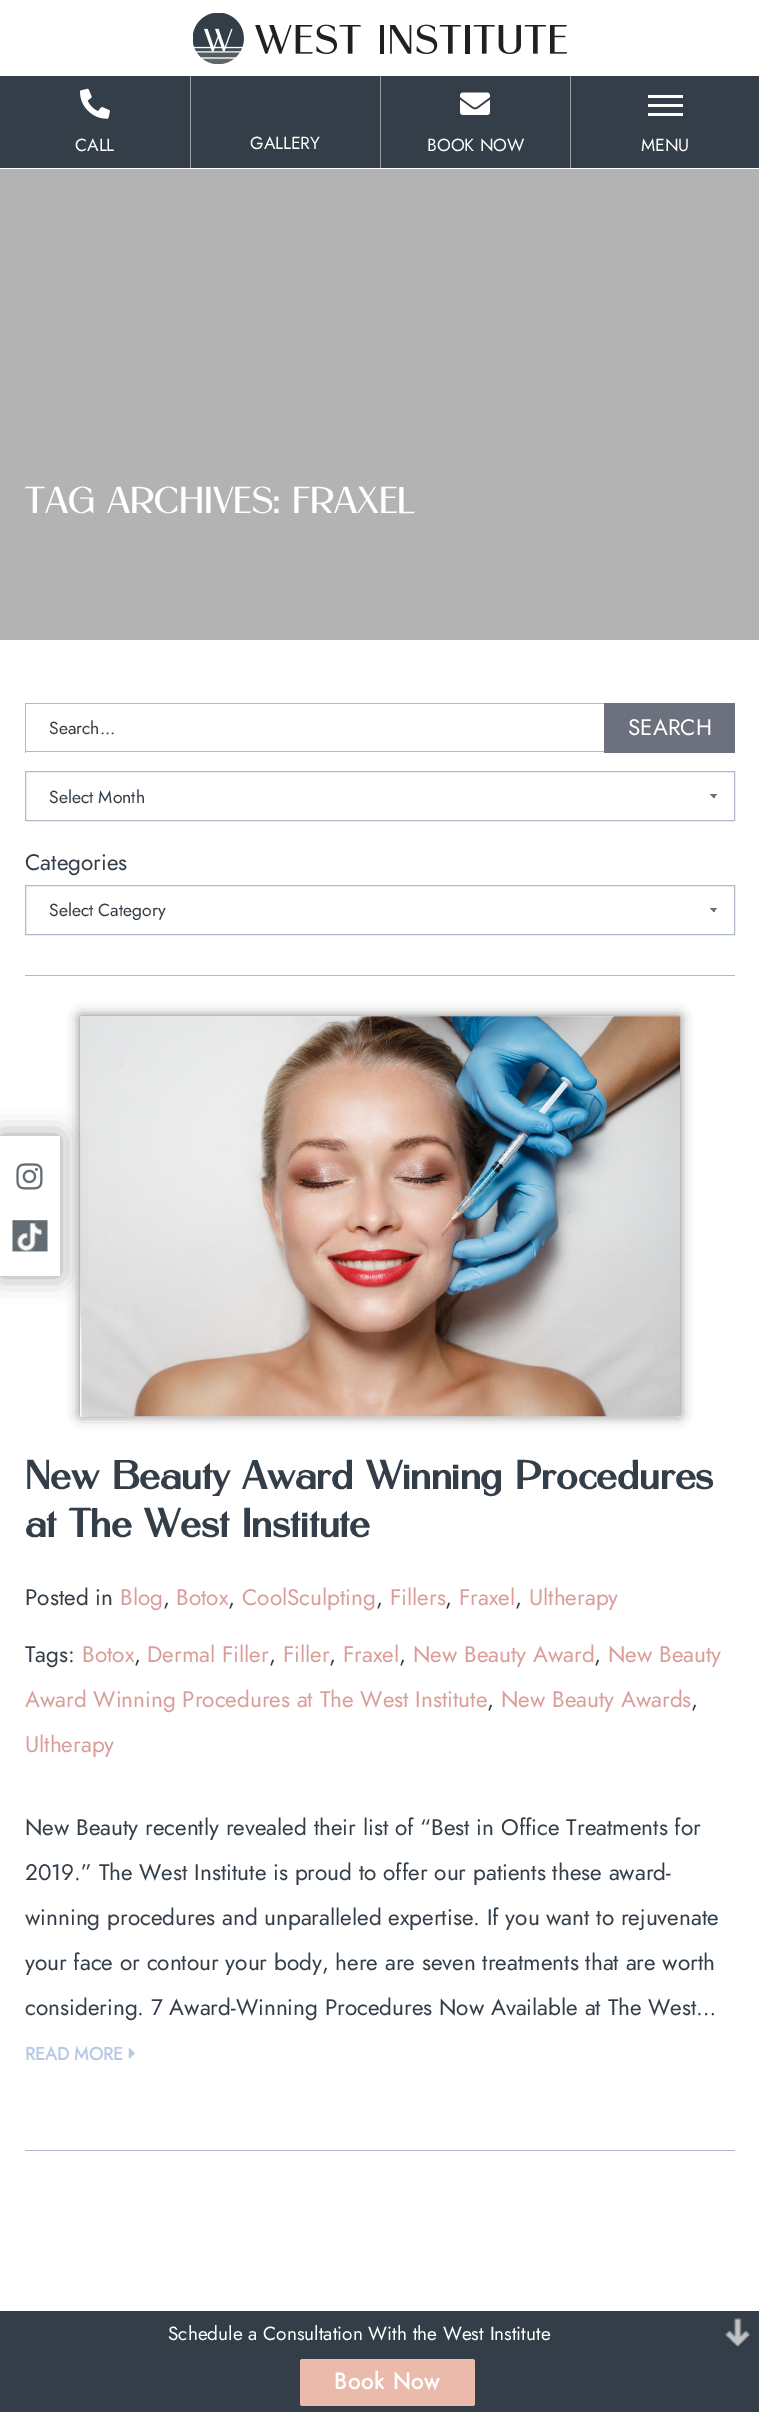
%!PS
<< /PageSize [759 2412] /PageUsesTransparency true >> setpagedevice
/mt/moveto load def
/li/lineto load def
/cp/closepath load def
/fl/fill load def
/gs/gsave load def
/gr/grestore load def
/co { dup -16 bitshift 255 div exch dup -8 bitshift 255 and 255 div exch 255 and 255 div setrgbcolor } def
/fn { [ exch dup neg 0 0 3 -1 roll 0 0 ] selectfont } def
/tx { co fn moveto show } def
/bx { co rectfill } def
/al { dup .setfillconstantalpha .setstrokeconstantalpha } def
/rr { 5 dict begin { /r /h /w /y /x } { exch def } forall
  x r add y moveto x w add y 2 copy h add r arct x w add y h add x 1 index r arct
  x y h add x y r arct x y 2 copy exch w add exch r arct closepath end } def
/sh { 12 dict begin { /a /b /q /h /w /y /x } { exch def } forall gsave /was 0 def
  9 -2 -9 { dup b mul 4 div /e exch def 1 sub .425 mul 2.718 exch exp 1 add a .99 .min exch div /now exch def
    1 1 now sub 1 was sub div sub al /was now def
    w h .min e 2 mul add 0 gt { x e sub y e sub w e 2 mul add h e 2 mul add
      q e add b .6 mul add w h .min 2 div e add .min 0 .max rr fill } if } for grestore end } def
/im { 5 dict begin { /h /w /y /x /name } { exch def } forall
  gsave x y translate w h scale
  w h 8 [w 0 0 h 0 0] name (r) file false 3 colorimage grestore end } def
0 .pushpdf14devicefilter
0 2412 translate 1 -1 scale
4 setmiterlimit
0 0 759 2412 16#FFFFFF bx
(media/1.raw) 193 13 375 51 im
0 76 759 92 16#333E48 bx
(media/2.raw) 80 88 30 31 im
190 76 1 92 16#999FA4 bx
380 76 1 92 16#999FA4 bx
(media/3.raw) 460 92 30 23 im
570 76 1 92 16#999FA4 bx
648 95 35 3 16#FFFFFF bx
648 104 35 3 16#FFFFFF bx
648 113 35 3 16#FFFFFF bx
0 169 759 471 16#B3B3B3 bx
25 975 710 1 16#B0B9C7 bx
25 703 579 1 16#B0B9C7 bx
25 751 579 1 16#B0B9C7 bx
25 703 1 50 16#B0B9C7 bx
604 703 131 50 16#6C717D bx
gs 714 794 mt 717 794 li 717 800 li 714 800 li cp clip newpath
<< /ShadingType 2 /ColorSpace /DeviceRGB /Coords [713 793 719 799] /Extend [true true] /Function << /FunctionType 3 /Domain [0 1] /Functions [<< /FunctionType 2 /Domain [0 1] /C0 [.424 .443 .49] /C1 [.424 .443 .49] /N 1 >> << /FunctionType 2 /Domain [0 1] /C0 [1 1 1] /C1 [1 1 1] /N 1 >>] /Bounds [.5] /Encode [0 1 0 1] >> >> shfill gr
gs 709 794 mt 714 794 li 714 800 li 709 800 li cp clip newpath
<< /ShadingType 2 /ColorSpace /DeviceRGB /Coords [708 799 714 793] /Extend [true true] /Function << /FunctionType 3 /Domain [0 1] /Functions [<< /FunctionType 2 /Domain [0 1] /C0 [1 1 1] /C1 [1 1 1] /N 1 >> << /FunctionType 2 /Domain [0 1] /C0 [.424 .443 .49] /C1 [.424 .443 .49] /N 1 >>] /Bounds [.5] /Encode [0 1 0 1] >> >> shfill gr
16#B0B9C7 co
25.5 771.5 709 49 rectstroke
gs 714 908 mt 717 908 li 717 914 li 714 914 li cp clip newpath
<< /ShadingType 2 /ColorSpace /DeviceRGB /Coords [713 907 719 913] /Extend [true true] /Function << /FunctionType 3 /Domain [0 1] /Functions [<< /FunctionType 2 /Domain [0 1] /C0 [.424 .443 .49] /C1 [.424 .443 .49] /N 1 >> << /FunctionType 2 /Domain [0 1] /C0 [1 1 1] /C1 [1 1 1] /N 1 >>] /Bounds [.5] /Encode [0 1 0 1] >> >> shfill gr
gs 709 908 mt 714 908 li 714 914 li 709 914 li cp clip newpath
<< /ShadingType 2 /ColorSpace /DeviceRGB /Coords [708 913 714 907] /Extend [true true] /Function << /FunctionType 3 /Domain [0 1] /Functions [<< /FunctionType 2 /Domain [0 1] /C0 [1 1 1] /C1 [1 1 1] /N 1 >> << /FunctionType 2 /Domain [0 1] /C0 [.424 .443 .49] /C1 [.424 .443 .49] /N 1 >>] /Bounds [.5] /Encode [0 1 0 1] >> >> shfill gr
25.5 885.5 709 49 rectstroke
16#7A7A7A co
80 1016 600 400 0 6 1 sh
(media/4.raw) 80 1016 600 401 im
(media/5.raw) 128 2048 7 11 im
25 2150 710 1 16#B0B9C7 bx
gs
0 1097 mt 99 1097 li 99 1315 li 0 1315 li cp 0 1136 mt 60 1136 li 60 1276 li 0 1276 li cp eoclip newpath
16#000000 co
0 1136 60 140 0 12.5 .38 sh
gr
0.8 al
0 1136 60 1 16#FFFFFF bx
1 al
(media/6.raw) 16 1163 27 27 im
(media/7.raw) 12 1220 36 32 im
0 2311 759 101 16#333E48 bx
(media/8.raw) 725 2318 26 30 im
16#EABBAB co
300 2359 175 47 2.5 rr fl
(CALL) 75 151 /Jost-Regular 17.5 16#FFFFFF tx
(GALLERY) 250 149 /Jost-Regular 17.5 16#FFFFFF tx
(BOOK NOW) 427 151 /Jost-Regular 17.5 16#FFFFFF tx
(MENU) 641 151 /Jost-Regular 17.5 16#FFFFFF tx
(TAG ARCHIVES: FRAXEL) 25 513 /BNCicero-Regular 37.5 16#FFFFFF tx
(Search...) 49 734 /Jost-Regular 17.5 16#3F3F3F tx
(SEARCH) 628 735 /Jost-Regular 22.5 16#FFFFFF tx
(Select Month) 49 803 /Jost-Regular 17.5 16#333E48 tx
(Categories) 25 870 /Jost-Regular 22.5 16#333E48 tx
(Select Category) 49 916 /Jost-Regular 17.5 16#333E48 tx
(New Beauty Award Winning Procedures) 25 1489 /BNCicero-Bold 40 16#333E48 tx
(at The West Institute) 25 1537 /BNCicero-Bold 40 16#333E48 tx
(Posted in) 25 1605 /Jost-Regular 22.5 16#333E48 tx
(Blog) 120 1605 /Jost-Regular 22.5 16#D99D9A tx
(,) 163 1605 /Jost-Regular 22.5 16#333E48 tx
(Botox) 176 1605 /Jost-Regular 22.5 16#D99D9A tx
(,) 228 1605 /Jost-Regular 22.5 16#333E48 tx
(CoolSculpting) 242 1605 /Jost-Regular 22.5 16#D99D9A tx
(,) 376 1605 /Jost-Regular 22.5 16#333E48 tx
(Fillers) 390 1605 /Jost-Regular 22.5 16#D99D9A tx
(,) 445 1605 /Jost-Regular 22.5 16#333E48 tx
(Fraxel) 459 1605 /Jost-Regular 22.5 16#D99D9A tx
(,) 515 1605 /Jost-Regular 22.5 16#333E48 tx
(Ultherapy) 529 1605 /Jost-Regular 22.5 16#D99D9A tx
(Tags:) 25 1662 /Jost-Regular 22.5 16#333E48 tx
(Botox) 82 1662 /Jost-Regular 22.5 16#D99D9A tx
(,) 134 1662 /Jost-Regular 22.5 16#333E48 tx
(Dermal Filler) 147 1662 /Jost-Regular 22.5 16#D99D9A tx
(,) 269 1662 /Jost-Regular 22.5 16#333E48 tx
(Filler) 283 1662 /Jost-Regular 22.5 16#D99D9A tx
(,) 329 1662 /Jost-Regular 22.5 16#333E48 tx
(Fraxel) 343 1662 /Jost-Regular 22.5 16#D99D9A tx
(,) 399 1662 /Jost-Regular 22.5 16#333E48 tx
(New Beauty Award) 413 1662 /Jost-Regular 22.5 16#D99D9A tx
(,) 594 1662 /Jost-Regular 22.5 16#333E48 tx
(New Beauty) 608 1662 /Jost-Regular 22.5 16#D99D9A tx
(Award Winning Procedures at The West Institute) 25 1707 /Jost-Regular 22.5 16#D99D9A tx
(,) 487 1707 /Jost-Regular 22.5 16#333E48 tx
(New Beauty Awards) 501 1707 /Jost-Regular 22.5 16#D99D9A tx
(,) 691 1707 /Jost-Regular 22.5 16#333E48 tx
(Ultherapy) 25 1752 /Jost-Regular 22.5 16#D99D9A tx
(New Beauty recently revealed their list of “Best in Office Treatments for) 25 1835 /Jost-Regular 22.5 16#333E48 tx
(2019.” The West Institute is proud to offer our patients these award-) 25 1880 /Jost-Regular 22.5 16#333E48 tx
(winning procedures and unparalleled expertise. If you want to rejuvenate) 25 1925 /Jost-Regular 22.5 16#333E48 tx
(your face or contour your body, here are seven treatments that are worth) 25 1970 /Jost-Regular 22.5 16#333E48 tx
(considering. 7 Award-Winning Procedures Now Available at The West…) 25 2015 /Jost-Regular 22.5 16#333E48 tx
(READ MORE) 25 2060 /Jost-Bold 18 16#B8C8E3 tx
(Schedule a Consultation With the West Institute) 168 2340 /Jost-Regular 19.1 16#FFFFFF tx
/Jost-Bold 22.5 fn
334 2389 mt 1 0 (Book Now) ashow
.poppdf14devicefilter showpage
